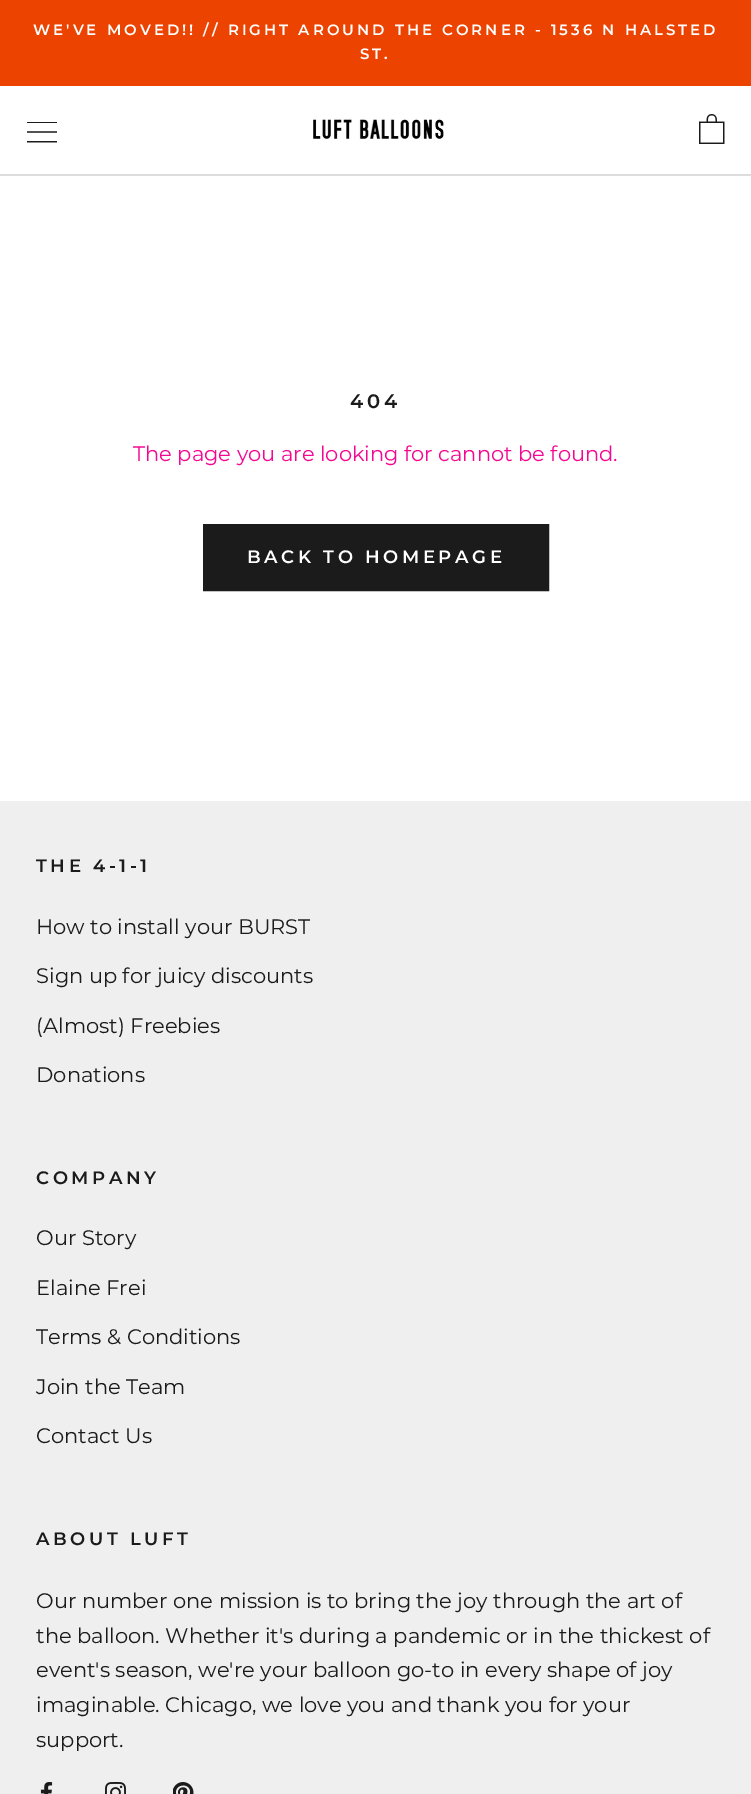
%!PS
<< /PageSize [751 1794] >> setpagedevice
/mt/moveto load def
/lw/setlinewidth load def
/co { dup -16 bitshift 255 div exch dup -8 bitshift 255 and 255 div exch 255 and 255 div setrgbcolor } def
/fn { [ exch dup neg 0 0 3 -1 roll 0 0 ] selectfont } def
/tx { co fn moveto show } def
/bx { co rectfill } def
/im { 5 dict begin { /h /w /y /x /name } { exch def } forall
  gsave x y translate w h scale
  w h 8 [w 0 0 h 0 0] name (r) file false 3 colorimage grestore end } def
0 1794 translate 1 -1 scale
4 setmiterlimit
0 0 751 1794 16#FFFFFF bx
0 0 751 86 16#EC4300 bx
0 174 751 2 16#DDDDDD bx
(media/1.raw) 27 122 30 21 im
(media/2.raw) 313 118 131 21 im
(media/3.raw) 699 114 26 30 im
16#1C1B1B co
2 lw
204 525 344 65 rectstroke
205 526 342 63 16#1C1B1B bx
0 801 751 993 16#EFEFEF bx
(media/4.raw) 40 1782 13 12 im
(media/5.raw) 105 1782 21 12 im
(media/6.raw) 173 1782 21 12 im
/Montserrat-SemiBold 15 fn
16#FFFFFF co
33 35 mt 3 0 (WE'VE MOVED!! // RIGHT AROUND THE CORNER - 1536 N HALSTED) ashow
360 59 mt 3 0 (ST.) ashow
/Montserrat-SemiBold 19.5 fn
16#1C1B1B co
350 408 mt 4 0 (404) ashow
(The page you are looking for cannot be found.) 133 461 /Montserrat-Regular 21 16#F50792 tx
/Montserrat-SemiBold 18 fn
16#FFFFFF co
247 563 mt 3.6 0 (BACK TO HOMEPAGE) ashow
16#1C1B1B co
36 872 mt 3.6 0 (THE 4-1-1) ashow
(How to install your BURST) 36 934 /Montserrat-Regular 21 16#1C1B1B tx
(Sign up for juicy discounts) 36 983 /Montserrat-Regular 21 16#1C1B1B tx
(\(Almost\) Freebies) 36 1033 /Montserrat-Regular 21 16#1C1B1B tx
(Donations) 36 1082 /Montserrat-Regular 21 16#1C1B1B tx
/Montserrat-SemiBold 18 fn
36 1184 mt 3.6 0 (COMPANY) ashow
(Our Story) 36 1245 /Montserrat-Regular 21 16#1C1B1B tx
(Elaine Frei) 36 1295 /Montserrat-Regular 21 16#1C1B1B tx
(Terms & Conditions) 36 1344 /Montserrat-Regular 21 16#1C1B1B tx
(Join the Team) 36 1394 /Montserrat-Regular 21 16#1C1B1B tx
(Contact Us) 36 1443 /Montserrat-Regular 21 16#1C1B1B tx
/Montserrat-SemiBold 18 fn
36 1545 mt 3.6 0 (ABOUT LUFT) ashow
(Our number one mission is to bring the joy through the art of) 36 1608 /Montserrat-Regular 21 16#1C1B1B tx
(the balloon. Whether it's during a pandemic or in the thickest of) 36 1643 /Montserrat-Regular 21 16#1C1B1B tx
(event's season, we're your balloon go-to in every shape of joy) 36 1677 /Montserrat-Regular 21 16#1C1B1B tx
(imaginable. Chicago, we love you and thank you for your) 36 1712 /Montserrat-Regular 21 16#1C1B1B tx
(support.) 36 1747 /Montserrat-Regular 21 16#1C1B1B tx
showpage
